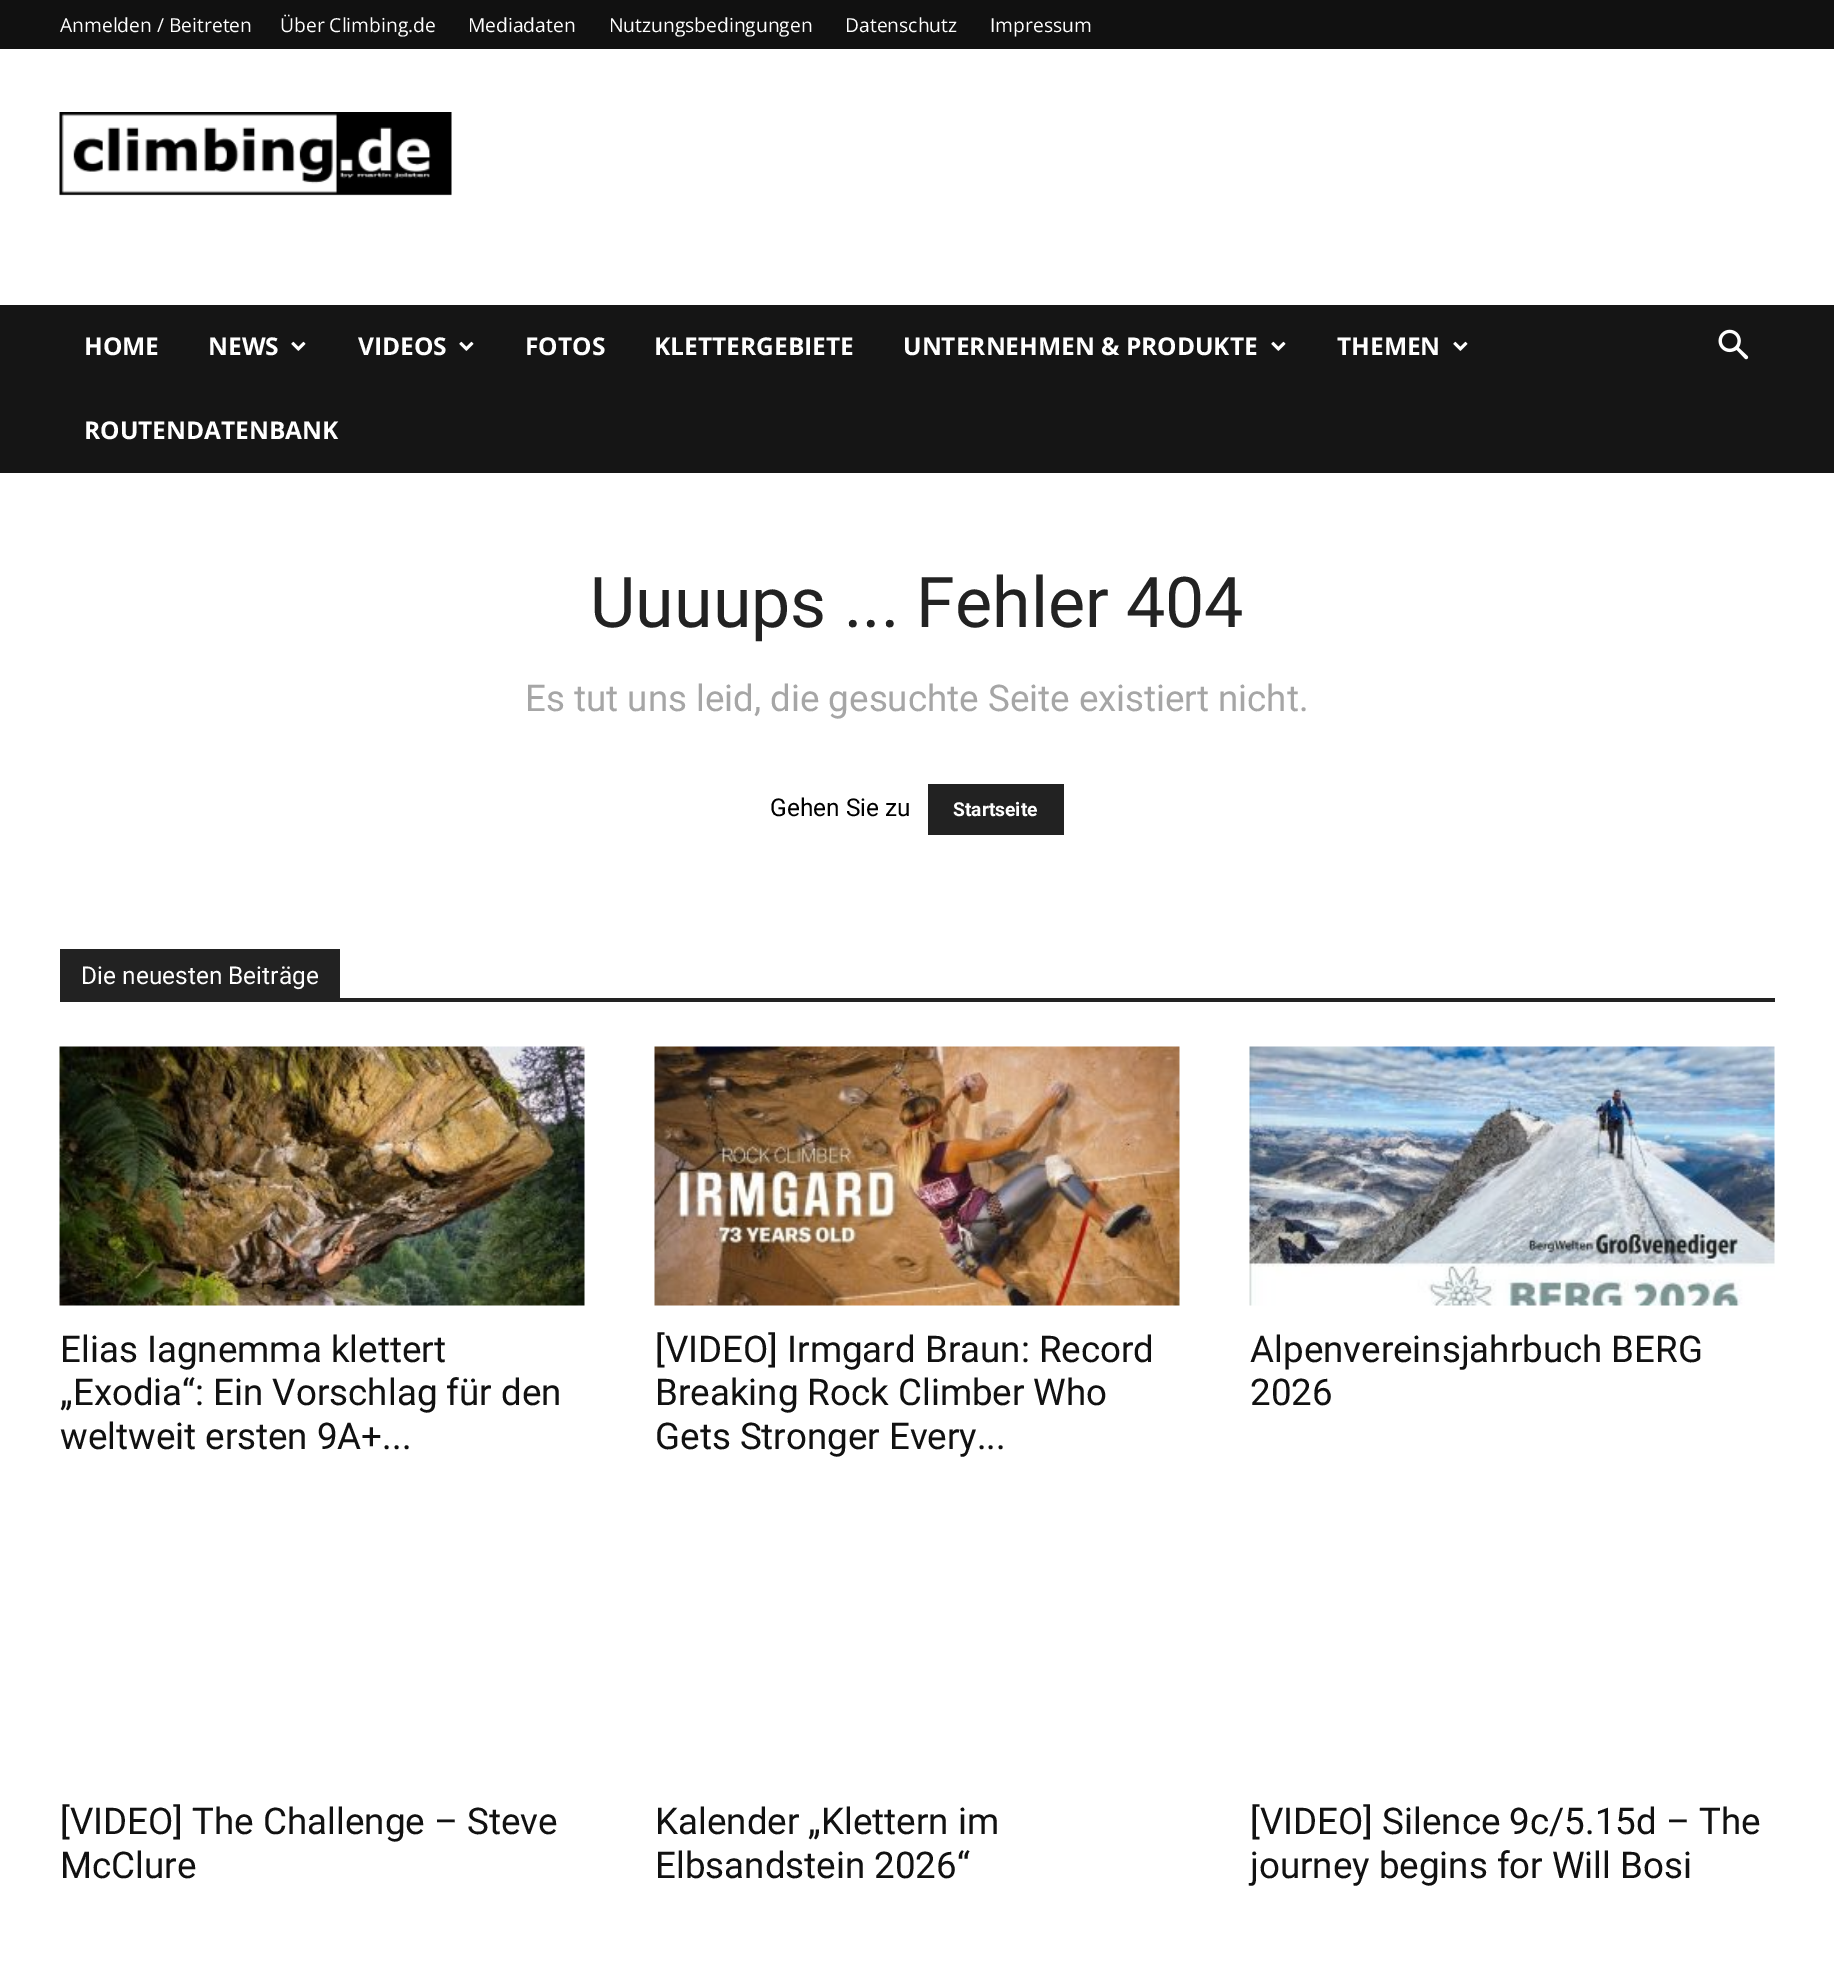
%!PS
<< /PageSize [1834 1985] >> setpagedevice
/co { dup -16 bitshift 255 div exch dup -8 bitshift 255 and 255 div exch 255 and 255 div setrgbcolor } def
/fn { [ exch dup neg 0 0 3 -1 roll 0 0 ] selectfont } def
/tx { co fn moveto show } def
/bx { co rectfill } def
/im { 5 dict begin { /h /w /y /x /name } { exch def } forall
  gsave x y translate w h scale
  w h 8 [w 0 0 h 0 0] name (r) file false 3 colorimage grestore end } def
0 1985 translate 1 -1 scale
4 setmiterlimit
0 0 1834 1985 16#FFFFFF bx
0 0 1834 49 16#111111 bx
(media/1.raw) 59 112 393 84 im
0 305 1834 168 16#151515 bx
(media/2.raw) 291 341 15 10 im
(media/2.raw) 459 341 15 10 im
(media/2.raw) 1271 341 15 10 im
(media/2.raw) 1453 341 15 10 im
(media/3.raw) 1718 329 31 31 im
928 784 136 51 16#222222 bx
60 998 1715 4 16#222222 bx
60 949 280 49 16#222222 bx
(media/4.raw) 59 1046 526 260 im
(media/5.raw) 654 1046 526 260 im
(media/6.raw) 1249 1046 526 260 im
(Anmelden / Beitreten) 60 32 /OpenSans-Regular 19.25 16#FFFFFF tx
(Über Climbing.de) 280 32 /OpenSans-Regular 19.25 16#FFFFFF tx
(Mediadaten) 468 32 /OpenSans-Regular 19.25 16#FFFFFF tx
(Nutzungsbedingungen) 609 32 /OpenSans-Regular 19.25 16#FFFFFF tx
(Datenschutz) 845 32 /OpenSans-Regular 19.25 16#FFFFFF tx
(Impressum) 990 32 /OpenSans-Regular 19.25 16#FFFFFF tx
(HOME) 84 355 /OpenSans-Bold 24.5 16#FFFFFF tx
(NEWS) 208 355 /OpenSans-Bold 24.5 16#FFFFFF tx
(VIDEOS) 358 355 /OpenSans-Bold 24.5 16#FFFFFF tx
(FOTOS) 525 355 /OpenSans-Bold 24.5 16#FFFFFF tx
(KLETTERGEBIETE) 654 355 /OpenSans-Bold 24.5 16#FFFFFF tx
(UNTERNEHMEN & PRODUKTE) 903 355 /OpenSans-Bold 24.5 16#FFFFFF tx
(THEMEN) 1337 355 /OpenSans-Bold 24.5 16#FFFFFF tx
(ROUTENDATENBANK) 84 439 /OpenSans-Bold 24.5 16#FFFFFF tx
(Uuuups ... Fehler 404) 590 627 /Roboto-Regular 70 16#222222 tx
(Es tut uns leid, die gesuchte Seite existiert nicht.) 525 711 /Roboto-Regular 36.75 16#A6A6A6 tx
(Gehen Sie zu) 770 816 /Roboto-Regular 24.5 16#000000 tx
(Startseite) 953 816 /Roboto-Bold 19.25 16#FFFFFF tx
(Die neuesten Beiträge) 81 984 /Roboto-Regular 24.5 16#FFFFFF tx
(Elias Iagnemma klettert) 60 1362 /Roboto-Regular 36.75 16#111111 tx
(„Exodia“: Ein Vorschlag für den) 60 1405 /Roboto-Regular 36.75 16#111111 tx
(weltweit ersten 9A+...) 60 1449 /Roboto-Regular 36.75 16#111111 tx
([VIDEO] Irmgard Braun: Record) 655 1362 /Roboto-Regular 36.75 16#111111 tx
(Breaking Rock Climber Who) 655 1405 /Roboto-Regular 36.75 16#111111 tx
(Gets Stronger Every...) 655 1449 /Roboto-Regular 36.75 16#111111 tx
(Alpenvereinsjahrbuch BERG) 1250 1362 /Roboto-Regular 36.75 16#111111 tx
(2026) 1250 1405 /Roboto-Regular 36.75 16#111111 tx
([VIDEO] The Challenge – Steve) 60 1834 /Roboto-Regular 36.75 16#111111 tx
(McClure) 60 1878 /Roboto-Regular 36.75 16#111111 tx
(Kalender „Klettern im) 655 1834 /Roboto-Regular 36.75 16#111111 tx
(Elbsandstein 2026“) 655 1878 /Roboto-Regular 36.75 16#111111 tx
([VIDEO] Silence 9c/5.15d – The) 1250 1834 /Roboto-Regular 36.75 16#111111 tx
(journey begins for Will Bosi) 1250 1878 /Roboto-Regular 36.75 16#111111 tx
showpage
